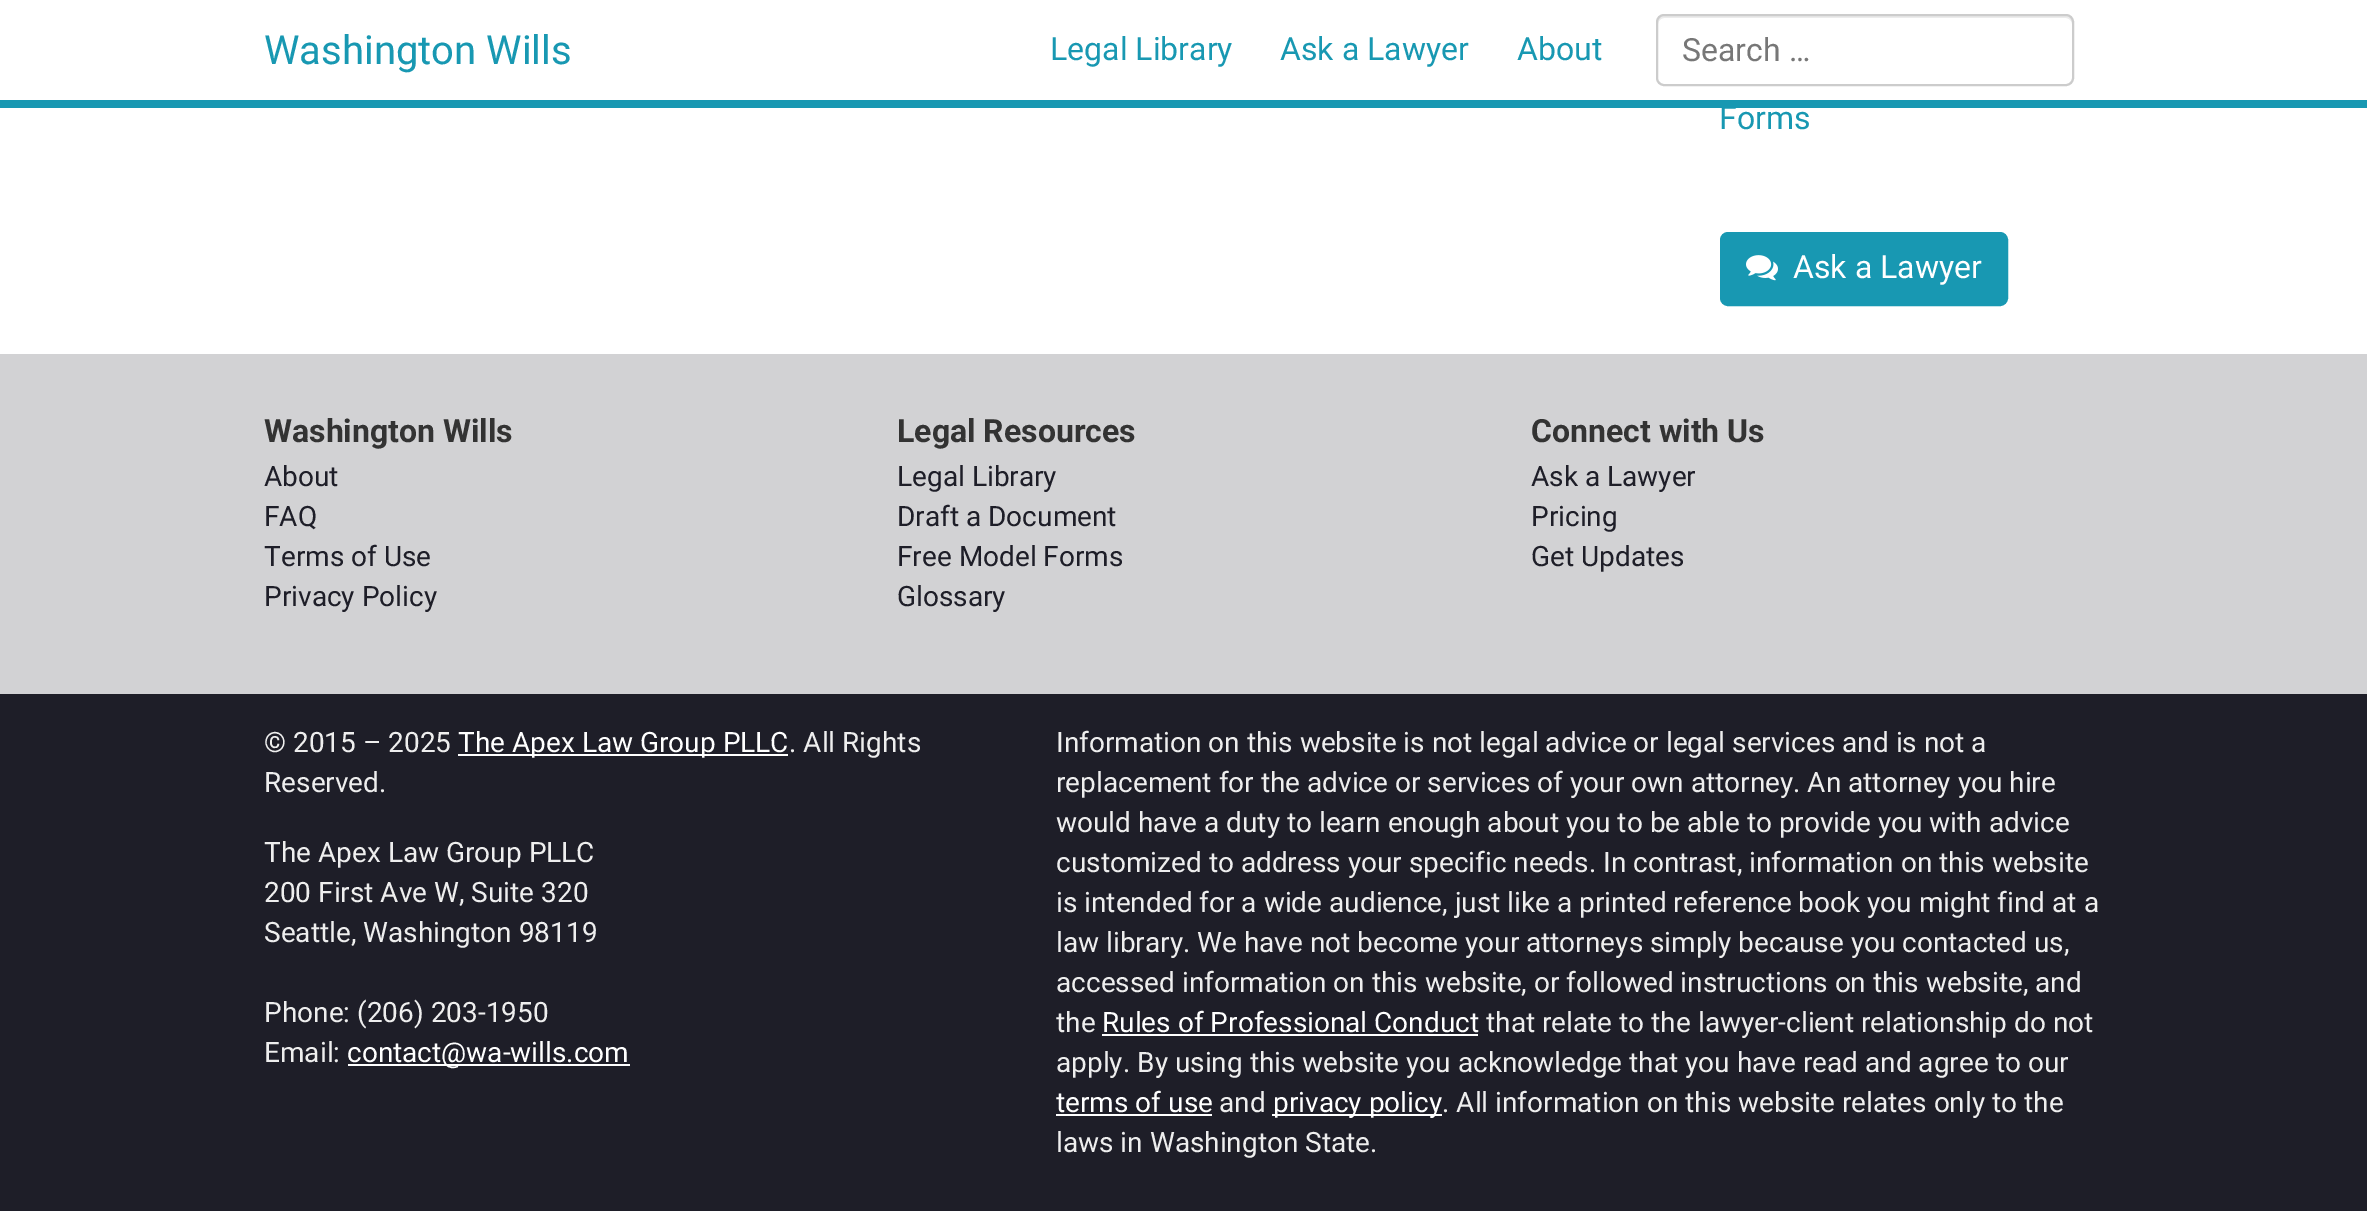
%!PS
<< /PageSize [2367 1211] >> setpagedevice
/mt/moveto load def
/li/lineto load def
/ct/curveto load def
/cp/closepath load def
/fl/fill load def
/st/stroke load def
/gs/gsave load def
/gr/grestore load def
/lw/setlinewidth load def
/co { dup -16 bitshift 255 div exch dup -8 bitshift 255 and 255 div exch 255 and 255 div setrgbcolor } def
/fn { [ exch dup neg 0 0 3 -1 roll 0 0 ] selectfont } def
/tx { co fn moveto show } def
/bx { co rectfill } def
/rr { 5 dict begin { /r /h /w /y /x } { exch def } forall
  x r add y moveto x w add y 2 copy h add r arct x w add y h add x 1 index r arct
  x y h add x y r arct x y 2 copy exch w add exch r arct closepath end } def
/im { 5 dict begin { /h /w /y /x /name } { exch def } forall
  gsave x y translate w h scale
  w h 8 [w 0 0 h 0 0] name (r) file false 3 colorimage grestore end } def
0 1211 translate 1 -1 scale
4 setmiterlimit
0 0 2367 1211 16#FFFFFF bx
0 100 2367 8 16#1898B2 bx
16#ECECEC co
1664 18 mt 2066 18 li 2069 18 2072 21 2072 24 ct 2072 22 li 2072 19 2069 16 2066 16 ct 1664 16 li 1661 16 1658 19 1658 22 ct 1658 24 li 1658 21 1661 18 1664 18 ct cp fl
16#CCCCCC co
2 lw
1657 15 416 70 7 rr st
16#1898B2 co
1721 233 286 72 7 rr gs fl gr
st
(media/1.raw) 1746 255 32 26 im
0 354 2367 340 16#D2D2D4 bx
0 694 2367 517 16#1E1E28 bx
458 754 330 2 16#FFFFFF bx
348 1064 282 2 16#FFFFFF bx
1102 1034 376 2 16#FFFFFF bx
1056 1114 156 2 16#FFFFFF bx
1272 1114 170 2 16#FFFFFF bx
(Washington Wills) 264 64 /Roboto-Regular 40 16#1898B2 tx
(Legal Library) 1050 60 /Roboto-Regular 32 16#1898B2 tx
(Ask a Lawyer) 1280 60 /Roboto-Regular 32 16#1898B2 tx
(About) 1517 60 /Roboto-Regular 32 16#1898B2 tx
(Search …) 1682 61 /Roboto-Regular 32 16#777777 tx
(Forms) 1719 129 /Roboto-Regular 32 16#1898B2 tx
(Ask a Lawyer) 1793 278 /Roboto-Regular 32 16#FFFFFF tx
(Washington Wills) 264 442 /Roboto-Bold 32 16#333333 tx
(About) 264 486 /Roboto-Regular 28 16#1E1E28 tx
(FAQ) 264 526 /Roboto-Regular 28 16#1E1E28 tx
(Terms of Use) 264 566 /Roboto-Regular 28 16#1E1E28 tx
(Privacy Policy) 264 606 /Roboto-Regular 28 16#1E1E28 tx
(Legal Resources) 897 442 /Roboto-Bold 32 16#333333 tx
(Legal Library) 897 486 /Roboto-Regular 28 16#1E1E28 tx
(Draft a Document) 897 526 /Roboto-Regular 28 16#1E1E28 tx
(Free Model Forms) 897 566 /Roboto-Regular 28 16#1E1E28 tx
(Glossary) 897 606 /Roboto-Regular 28 16#1E1E28 tx
(Connect with Us) 1531 442 /Roboto-Bold 32 16#333333 tx
(Ask a Lawyer) 1531 486 /Roboto-Regular 28 16#1E1E28 tx
(Pricing) 1531 526 /Roboto-Regular 28 16#1E1E28 tx
(Get Updates) 1531 566 /Roboto-Regular 28 16#1E1E28 tx
(© 2015 – 2025) 264 752 /Roboto-Regular 28 16#EEEEEE tx
(The Apex Law Group PLLC) 458 752 /Roboto-Regular 28 16#FFFFFF tx
(. All Rights) 789 752 /Roboto-Regular 28 16#EEEEEE tx
(Reserved.) 264 792 /Roboto-Regular 28 16#EEEEEE tx
(The Apex Law Group PLLC) 264 862 /Roboto-Regular 28 16#EEEEEE tx
(200 First Ave W, Suite 320) 264 902 /Roboto-Regular 28 16#EEEEEE tx
(Seattle, Washington 98119) 264 942 /Roboto-Regular 28 16#EEEEEE tx
(Phone: \(206\) 203-1950) 264 1022 /Roboto-Regular 28 16#EEEEEE tx
(Email:) 264 1062 /Roboto-Regular 28 16#EEEEEE tx
(contact@wa-wills.com) 347 1062 /Roboto-Regular 28 16#FFFFFF tx
(Information on this website is not legal advice or legal services and is not a) 1056 752 /Roboto-Regular 28 16#EEEEEE tx
(replacement for the advice or services of your own attorney. An attorney you hire) 1056 792 /Roboto-Regular 28 16#EEEEEE tx
(would have a duty to learn enough about you to be able to provide you with advice) 1056 832 /Roboto-Regular 28 16#EEEEEE tx
(customized to address your specific needs. In contrast, information on this website) 1056 872 /Roboto-Regular 28 16#EEEEEE tx
(is intended for a wide audience, just like a printed reference book you might find at a) 1056 912 /Roboto-Regular 28 16#EEEEEE tx
(law library. We have not become your attorneys simply because you contacted us,) 1056 952 /Roboto-Regular 28 16#EEEEEE tx
(accessed information on this website, or followed instructions on this website, and) 1056 992 /Roboto-Regular 28 16#EEEEEE tx
(the) 1056 1032 /Roboto-Regular 28 16#EEEEEE tx
(Rules of Professional Conduct) 1102 1032 /Roboto-Regular 28 16#FFFFFF tx
(that relate to the lawyer-client relationship do not) 1486 1032 /Roboto-Regular 28 16#EEEEEE tx
(apply. By using this website you acknowledge that you have read and agree to our) 1056 1072 /Roboto-Regular 28 16#EEEEEE tx
(terms of use) 1056 1112 /Roboto-Regular 28 16#FFFFFF tx
(and) 1219 1112 /Roboto-Regular 28 16#EEEEEE tx
(privacy policy) 1273 1112 /Roboto-Regular 28 16#FFFFFF tx
(. All information on this website relates only to the) 1442 1112 /Roboto-Regular 28 16#EEEEEE tx
(laws in Washington State.) 1056 1152 /Roboto-Regular 28 16#EEEEEE tx
showpage
